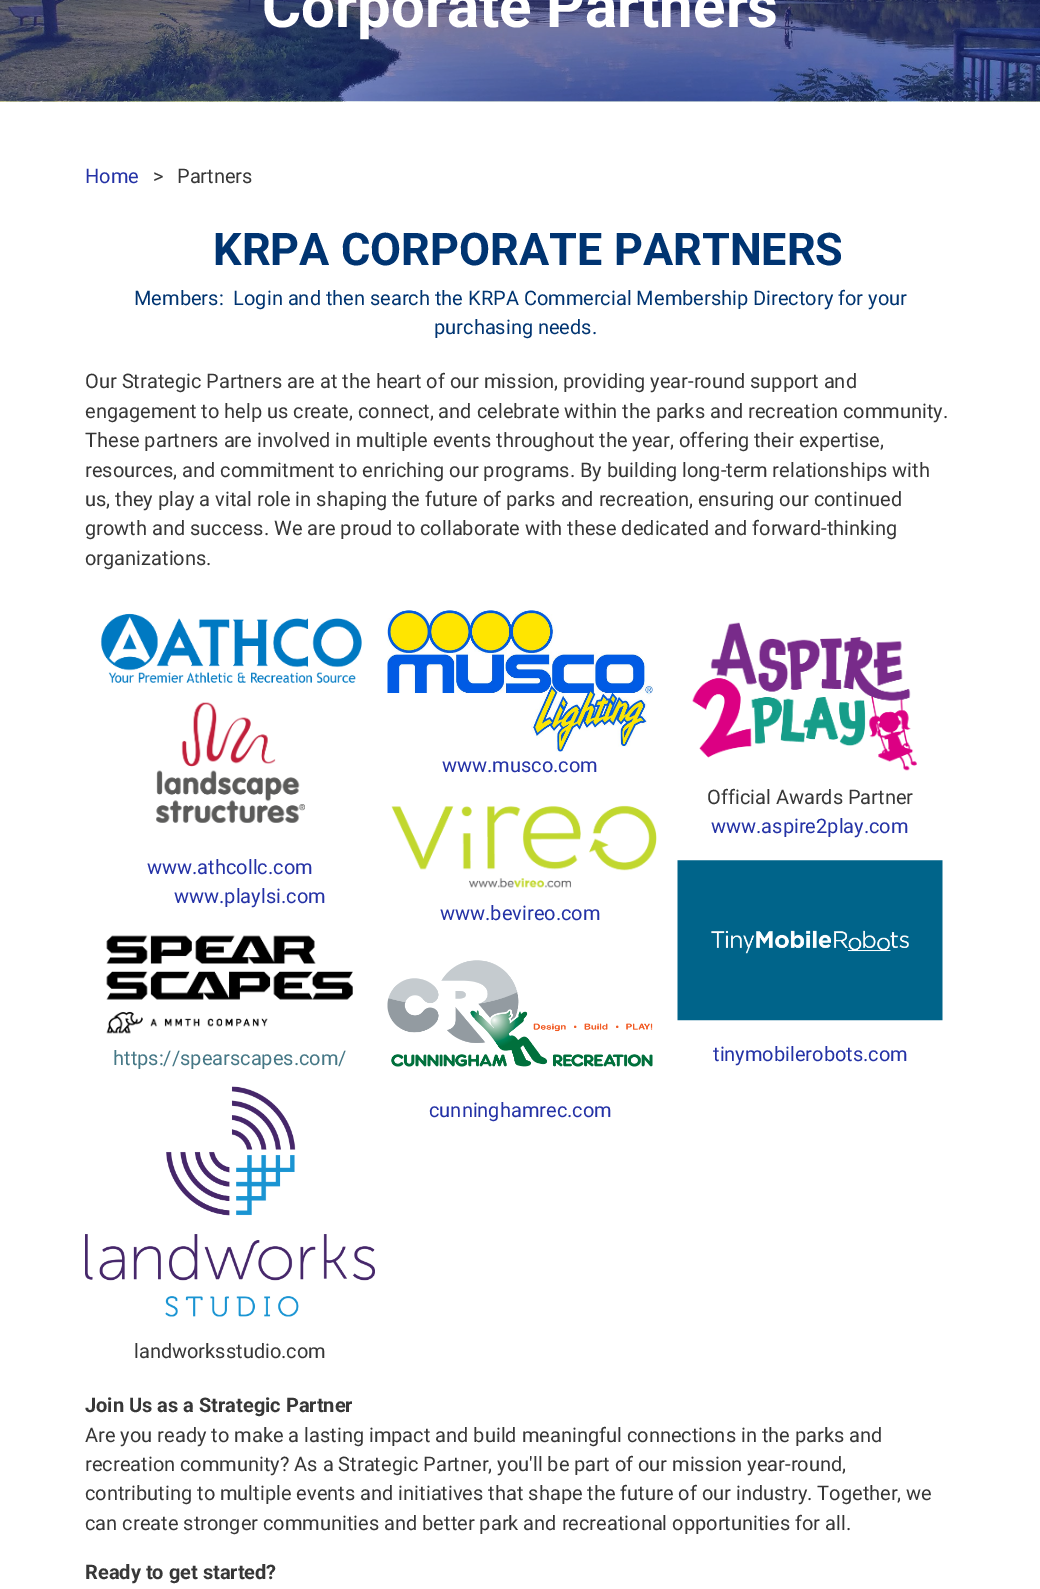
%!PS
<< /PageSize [1040 1589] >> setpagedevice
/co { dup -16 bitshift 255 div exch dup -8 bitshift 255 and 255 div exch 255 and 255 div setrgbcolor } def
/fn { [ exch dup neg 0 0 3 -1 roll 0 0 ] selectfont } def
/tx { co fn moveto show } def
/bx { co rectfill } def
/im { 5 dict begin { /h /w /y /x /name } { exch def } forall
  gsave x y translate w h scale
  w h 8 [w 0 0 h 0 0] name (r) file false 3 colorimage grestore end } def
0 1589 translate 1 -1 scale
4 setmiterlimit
0 0 1040 1589 16#FFFFFF bx
(media/1.raw) 0 0 1040 102 im
(media/2.raw) 100 613 262 70 im
(media/3.raw) 156 702 149 121 im
(media/4.raw) 106 935 247 99 im
(media/5.raw) 85 1086 290 231 im
(media/6.raw) 387 610 266 142 im
(media/7.raw) 391 805 266 83 im
(media/8.raw) 387 960 266 107 im
(media/9.raw) 692 622 225 149 im
(media/10.raw) 677 860 266 161 im
(Corporate Partners) 262 27 /Roboto-Bold 60 16#FFFFFF tx
(Home) 85 183 /Roboto-Regular 20 16#2432A6 tx
(>) 153 183 /Roboto-Regular 20 16#373737 tx
(Partners) 177 183 /Roboto-Regular 20 16#373737 tx
(KRPA CORPORATE PARTNERS) 213 265 /Roboto-Bold 45 16#003471 tx
(Members:  Login and then search the KRPA Commercial Membership Directory for your) 134 305 /Roboto-Regular 20 16#003471 tx
(purchasing needs.) 434 334 /Roboto-Regular 20 16#003471 tx
(Our Strategic Partners are at the heart of our mission, providing year-round support and) 85 388 /Roboto-Regular 20 16#373737 tx
(engagement to help us create, connect, and celebrate within the parks and recreation community.) 85 418 /Roboto-Regular 20 16#373737 tx
(These partners are involved in multiple events throughout the year, offering their expertise,) 85 447 /Roboto-Regular 20 16#373737 tx
(resources, and commitment to enriching our programs. By building long-term relationships with) 85 477 /Roboto-Regular 20 16#373737 tx
(us, they play a vital role in shaping the future of parks and recreation, ensuring our continued) 85 506 /Roboto-Regular 20 16#373737 tx
(growth and success. We are proud to collaborate with these dedicated and forward-thinking) 85 535 /Roboto-Regular 20 16#373737 tx
(organizations.) 85 565 /Roboto-Regular 20 16#373737 tx
(www.athcollc.com) 147 874 /Roboto-Regular 20 16#2432A6 tx
(www.playlsi.com) 174 903 /Roboto-Regular 20 16#2432A6 tx
(https://spearscapes.com/) 113 1065 /Roboto-Regular 20 16#467886 tx
(landworksstudio.com) 134 1358 /Roboto-Regular 20 16#373737 tx
(www.musco.com) 442 772 /Roboto-Regular 20 16#2432A6 tx
(www.bevireo.com) 440 920 /Roboto-Regular 20 16#2432A6 tx
(cunninghamrec.com) 429 1117 /Roboto-Regular 20 16#2432A6 tx
(Official Awards Partner) 707 804 /Roboto-Regular 20 16#373737 tx
(www.aspire2play.com) 711 833 /Roboto-Regular 20 16#2432A6 tx
(tinymobilerobots.com) 713 1061 /Roboto-Regular 20 16#2432A6 tx
(Join Us as a Strategic Partner) 85 1412 /Roboto-Bold 20 16#373737 tx
(Are you ready to make a lasting impact and build meaningful connections in the parks and) 85 1442 /Roboto-Regular 20 16#373737 tx
(recreation community? As a Strategic Partner, you'll be part of our mission year-round,) 85 1471 /Roboto-Regular 20 16#373737 tx
(contributing to multiple events and initiatives that shape the future of our industry. Together, we) 85 1500 /Roboto-Regular 20 16#373737 tx
(can create stronger communities and better park and recreational opportunities for all.) 85 1530 /Roboto-Regular 20 16#373737 tx
(Ready to get started?) 85 1579 /Roboto-Bold 20 16#373737 tx
showpage
